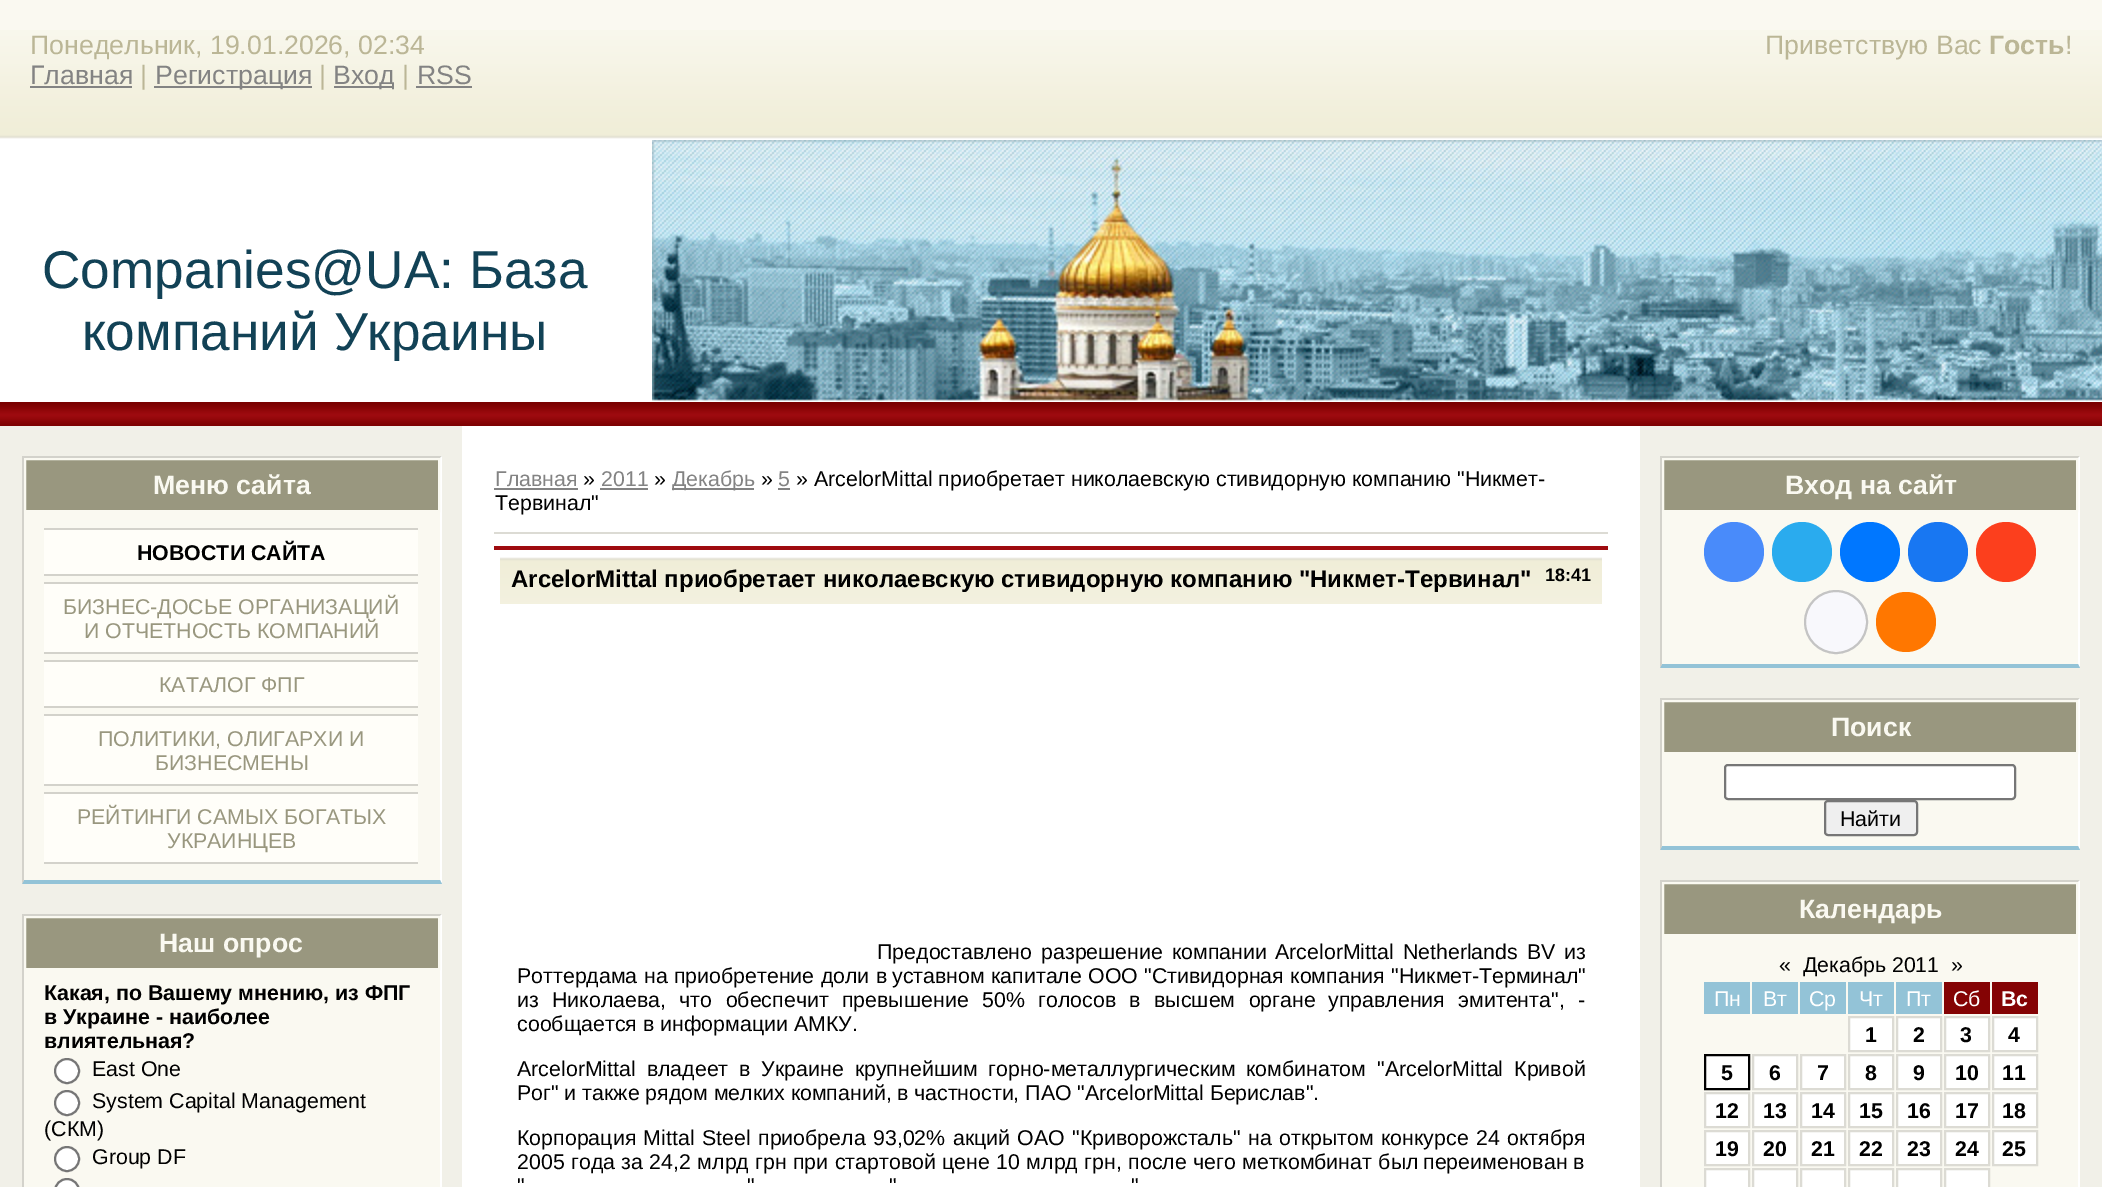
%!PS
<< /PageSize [2102 1187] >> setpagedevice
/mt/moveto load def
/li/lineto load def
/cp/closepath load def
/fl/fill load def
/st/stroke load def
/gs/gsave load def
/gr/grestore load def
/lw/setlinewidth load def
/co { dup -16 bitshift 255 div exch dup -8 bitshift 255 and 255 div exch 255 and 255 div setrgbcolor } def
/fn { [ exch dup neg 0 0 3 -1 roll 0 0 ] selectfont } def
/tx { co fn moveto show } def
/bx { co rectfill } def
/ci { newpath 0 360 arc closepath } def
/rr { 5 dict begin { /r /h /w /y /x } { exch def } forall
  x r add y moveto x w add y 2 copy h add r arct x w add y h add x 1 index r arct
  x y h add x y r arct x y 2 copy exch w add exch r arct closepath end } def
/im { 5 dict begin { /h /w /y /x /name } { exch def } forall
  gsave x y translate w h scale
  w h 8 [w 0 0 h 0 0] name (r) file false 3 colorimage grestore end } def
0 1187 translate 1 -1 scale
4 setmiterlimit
0 0 2102 1187 16#FFFFFF bx
0 0 2102 30 16#FAF9F1 bx
(media/1.raw) 0 30 2102 110 im
30 86 102 2 16#838383 bx
154 86 158 2 16#838383 bx
334 86 60 2 16#838383 bx
416 86 56 2 16#838383 bx
(media/2.raw) 652 140 1450 262 im
(media/3.raw) 0 402 2102 24 im
0 426 462 761 16#F1F0E8 bx
24 512 416 368 16#FAF9F1 bx
22 456 420 2 16#D3D2CB bx
16#FFFFFF co
442 456 mt 442 884 li 440 880 li 440 458 li cp fl
16#93C3D7 co
442 884 mt 22 884 li 24 880 li 440 880 li cp fl
16#D3D2CB co
22 884 mt 22 456 li 24 458 li 24 880 li cp fl
16#99977F co
25 459 mt 439 459 li 439 511 li 25 511 li cp gs fl gr
16#FAF9F1 co
2 lw
st
44 530 374 44 16#FFFEF9 bx
44 528 374 2 16#D3D2CB bx
44 574 374 2 16#D3D2CB bx
44 584 374 68 16#FFFEF9 bx
44 582 374 2 16#D3D2CB bx
44 652 374 2 16#D3D2CB bx
44 662 374 44 16#FFFEF9 bx
44 660 374 2 16#D3D2CB bx
44 706 374 2 16#D3D2CB bx
44 716 374 68 16#FFFEF9 bx
44 714 374 2 16#D3D2CB bx
44 784 374 2 16#D3D2CB bx
44 794 374 68 16#FFFEF9 bx
44 792 374 2 16#D3D2CB bx
44 862 374 2 16#D3D2CB bx
24 970 416 217 16#FAF9F1 bx
22 914 420 2 16#D3D2CB bx
16#FFFFFF co
442 914 mt 442 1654 li 440 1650 li 440 916 li cp fl
16#D3D2CB co
22 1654 mt 22 914 li 24 916 li 24 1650 li cp fl
16#99977F co
25 917 mt 439 917 li 439 969 li 25 969 li cp gs fl gr
16#FAF9F1 co
st
16#FFFFFF co
67 1071 12 ci gs fl gr
16#767676 co
st
16#FFFFFF co
67 1103 12 ci gs fl gr
16#767676 co
st
16#FFFFFF co
67 1159 12 ci gs fl gr
16#767676 co
st
16#FFFFFF co
55 1179 24 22 12 rr gs fl gr
16#767676 co
st
494 488 84 2 16#838383 bx
600 488 48 2 16#838383 bx
672 488 82 2 16#838383 bx
778 488 12 2 16#838383 bx
494 532 1114 2 16#DCDBD4 bx
494 546 1114 4 16#9E0B0F bx
(media/4.raw) 500 556 1102 48 im
1640 426 462 761 16#F1F0E8 bx
1662 512 416 152 16#FAF9F1 bx
1660 456 420 2 16#D3D2CB bx
16#FFFFFF co
2080 456 mt 2080 668 li 2078 664 li 2078 458 li cp fl
16#93C3D7 co
2080 668 mt 1660 668 li 1662 664 li 2078 664 li cp fl
16#D3D2CB co
1660 668 mt 1660 456 li 1662 458 li 1662 664 li cp fl
16#99977F co
1663 459 mt 2077 459 li 2077 511 li 1663 511 li cp gs fl gr
16#FAF9F1 co
st
16#498BFA co
1734 552 30 ci fl
16#2AABEE co
1802 552 30 ci fl
16#0077FF co
1870 552 30 ci fl
16#1877F2 co
1938 552 30 ci fl
16#FC3F1D co
2006 552 30 ci fl
16#F8F8FC co
1836 622 31 ci gs fl gr
16#C4C4C4 co
st
16#FF7700 co
1906 622 30 ci fl
1662 754 416 92 16#FAF9F1 bx
1660 698 420 2 16#D3D2CB bx
16#FFFFFF co
2080 698 mt 2080 850 li 2078 846 li 2078 700 li cp fl
16#93C3D7 co
2080 850 mt 1660 850 li 1662 846 li 2078 846 li cp fl
16#D3D2CB co
1660 850 mt 1660 698 li 1662 700 li 1662 846 li cp fl
16#99977F co
1663 701 mt 2077 701 li 2077 753 li 1663 753 li cp gs fl gr
16#FAF9F1 co
st
16#FFFFFF co
1725 765 290 34 3 rr gs fl gr
16#767676 co
st
16#EFEFEF co
1825 801 92 34 3 rr gs fl gr
16#767676 co
st
1662 936 416 251 16#FAF9F1 bx
1660 880 420 2 16#D3D2CB bx
16#FFFFFF co
2080 880 mt 2080 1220 li 2078 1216 li 2078 882 li cp fl
16#D3D2CB co
1660 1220 mt 1660 880 li 1662 882 li 1662 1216 li cp fl
16#99977F co
1663 883 mt 2077 883 li 2077 935 li 1663 935 li cp gs fl gr
16#FAF9F1 co
st
1704 982 46 32 16#93C3D7 bx
1752 982 46 32 16#93C3D7 bx
1800 982 46 32 16#93C3D7 bx
1848 982 46 32 16#93C3D7 bx
1896 982 46 32 16#93C3D7 bx
1944 982 46 32 16#840304 bx
1992 982 46 32 16#840304 bx
16#FFFFFF co
1849 1017 mt 1893 1017 li 1893 1051 li 1849 1051 li cp gs fl gr
16#DCDBD4 co
st
16#FFFFFF co
1897 1017 mt 1941 1017 li 1941 1051 li 1897 1051 li cp gs fl gr
16#DCDBD4 co
st
16#FFFFFF co
1945 1017 mt 1989 1017 li 1989 1051 li 1945 1051 li cp gs fl gr
16#DCDBD4 co
st
16#FFFFFF co
1993 1017 mt 2037 1017 li 2037 1051 li 1993 1051 li cp gs fl gr
16#DCDBD4 co
st
16#FFFFFF co
1705 1055 mt 1749 1055 li 1749 1089 li 1705 1089 li cp gs fl gr
16#000000 co
st
16#FFFFFF co
1753 1055 mt 1797 1055 li 1797 1089 li 1753 1089 li cp gs fl gr
16#DCDBD4 co
st
16#FFFFFF co
1801 1055 mt 1845 1055 li 1845 1089 li 1801 1089 li cp gs fl gr
16#DCDBD4 co
st
16#FFFFFF co
1849 1055 mt 1893 1055 li 1893 1089 li 1849 1089 li cp gs fl gr
16#DCDBD4 co
st
16#FFFFFF co
1897 1055 mt 1941 1055 li 1941 1089 li 1897 1089 li cp gs fl gr
16#DCDBD4 co
st
16#FFFFFF co
1945 1055 mt 1989 1055 li 1989 1089 li 1945 1089 li cp gs fl gr
16#DCDBD4 co
st
16#FFFFFF co
1993 1055 mt 2037 1055 li 2037 1089 li 1993 1089 li cp gs fl gr
16#DCDBD4 co
st
16#FFFFFF co
1705 1093 mt 1749 1093 li 1749 1127 li 1705 1127 li cp gs fl gr
16#DCDBD4 co
st
16#FFFFFF co
1753 1093 mt 1797 1093 li 1797 1127 li 1753 1127 li cp gs fl gr
16#DCDBD4 co
st
16#FFFFFF co
1801 1093 mt 1845 1093 li 1845 1127 li 1801 1127 li cp gs fl gr
16#DCDBD4 co
st
16#FFFFFF co
1849 1093 mt 1893 1093 li 1893 1127 li 1849 1127 li cp gs fl gr
16#DCDBD4 co
st
16#FFFFFF co
1897 1093 mt 1941 1093 li 1941 1127 li 1897 1127 li cp gs fl gr
16#DCDBD4 co
st
16#FFFFFF co
1945 1093 mt 1989 1093 li 1989 1127 li 1945 1127 li cp gs fl gr
16#DCDBD4 co
st
16#FFFFFF co
1993 1093 mt 2037 1093 li 2037 1127 li 1993 1127 li cp gs fl gr
16#DCDBD4 co
st
16#FFFFFF co
1705 1131 mt 1749 1131 li 1749 1165 li 1705 1165 li cp gs fl gr
16#DCDBD4 co
st
16#FFFFFF co
1753 1131 mt 1797 1131 li 1797 1165 li 1753 1165 li cp gs fl gr
16#DCDBD4 co
st
16#FFFFFF co
1801 1131 mt 1845 1131 li 1845 1165 li 1801 1165 li cp gs fl gr
16#DCDBD4 co
st
16#FFFFFF co
1849 1131 mt 1893 1131 li 1893 1165 li 1849 1165 li cp gs fl gr
16#DCDBD4 co
st
16#FFFFFF co
1897 1131 mt 1941 1131 li 1941 1165 li 1897 1165 li cp gs fl gr
16#DCDBD4 co
st
16#FFFFFF co
1945 1131 mt 1989 1131 li 1989 1165 li 1945 1165 li cp gs fl gr
16#DCDBD4 co
st
16#FFFFFF co
1993 1131 mt 2037 1131 li 2037 1165 li 1993 1165 li cp gs fl gr
16#DCDBD4 co
st
16#FFFFFF co
1705 1169 mt 1749 1169 li 1749 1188 li 1705 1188 li cp gs fl gr
16#DCDBD4 co
st
16#FFFFFF co
1753 1169 mt 1797 1169 li 1797 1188 li 1753 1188 li cp gs fl gr
16#DCDBD4 co
st
16#FFFFFF co
1801 1169 mt 1845 1169 li 1845 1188 li 1801 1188 li cp gs fl gr
16#DCDBD4 co
st
16#FFFFFF co
1849 1169 mt 1893 1169 li 1893 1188 li 1849 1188 li cp gs fl gr
16#DCDBD4 co
st
16#FFFFFF co
1897 1169 mt 1941 1169 li 1941 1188 li 1897 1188 li cp gs fl gr
16#DCDBD4 co
st
16#FFFFFF co
1945 1169 mt 1989 1169 li 1989 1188 li 1945 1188 li cp gs fl gr
16#DCDBD4 co
st
(Понедельник, 19.01.2026, 02:34) 30 54 /LiberationSans-Regular 26.7 16#BBB696 tx
(Главная) 30 84 /LiberationSans-Regular 26.7 16#838383 tx
(|) 140 84 /LiberationSans-Regular 26.7 16#BBB696 tx
(Регистрация) 155 84 /LiberationSans-Regular 26.7 16#838383 tx
(|) 319 84 /LiberationSans-Regular 26.7 16#BBB696 tx
(Вход) 333 84 /LiberationSans-Regular 26.7 16#838383 tx
(|) 402 84 /LiberationSans-Regular 26.7 16#BBB696 tx
(RSS) 417 84 /LiberationSans-Regular 26.7 16#838383 tx
(Приветствую Вас) 1765 54 /LiberationSans-Regular 26.7 16#BBB696 tx
(Гость) 1989 54 /LiberationSans-Bold 26.7 16#BBB696 tx
(!) 2065 54 /LiberationSans-Regular 26.7 16#BBB696 tx
(Companies@UA: База) 42 288 /LiberationSans-Regular 53.25 16#124256 tx
(компаний Украины) 82 350 /LiberationSans-Regular 53.25 16#124256 tx
(Меню сайта) 153 494 /LiberationSans-Bold 26.7 16#FAF9F1 tx
(НОВОСТИ САЙТА) 137 560 /LiberationSans-Bold 21.35 16#000000 tx
(БИЗНЕС-ДОСЬЕ ОРГАНИЗАЦИЙ) 63 614 /LiberationSans-Regular 21.35 16#99977F tx
(И ОТЧЕТНОСТЬ КОМПАНИЙ) 84 638 /LiberationSans-Regular 21.35 16#99977F tx
(КАТАЛОГ ФПГ) 159 692 /LiberationSans-Regular 21.35 16#99977F tx
(ПОЛИТИКИ, ОЛИГАРХИ И) 98 746 /LiberationSans-Regular 21.35 16#99977F tx
(БИЗНЕСМЕНЫ) 155 770 /LiberationSans-Regular 21.35 16#99977F tx
(РЕЙТИНГИ САМЫХ БОГАТЫХ) 77 824 /LiberationSans-Regular 21.35 16#99977F tx
(УКРАИНЦЕВ) 167 848 /LiberationSans-Regular 21.35 16#99977F tx
(Наш опрос) 159 952 /LiberationSans-Bold 26.7 16#FAF9F1 tx
(Какая, по Вашему мнению, из ФПГ) 44 1000 /LiberationSans-Bold 21.35 16#000000 tx
(в Украине - наиболее) 44 1024 /LiberationSans-Bold 21.35 16#000000 tx
(влиятельная?) 44 1048 /LiberationSans-Bold 21.35 16#000000 tx
(East One) 92 1076 /LiberationSans-Regular 21.35 16#000000 tx
(System Capital Management) 92 1108 /LiberationSans-Regular 21.35 16#000000 tx
(\(СКМ\)) 44 1136 /LiberationSans-Regular 21.35 16#000000 tx
(Group DF) 92 1164 /LiberationSans-Regular 21.35 16#000000 tx
(Главная) 495 486 /LiberationSans-Regular 21.35 16#838383 tx
(») 583 486 /LiberationSans-Regular 21.35 16#000000 tx
(2011) 601 486 /LiberationSans-Regular 21.35 16#838383 tx
(») 654 486 /LiberationSans-Regular 21.35 16#000000 tx
(Декабрь) 672 486 /LiberationSans-Regular 21.35 16#838383 tx
(») 761 486 /LiberationSans-Regular 21.35 16#000000 tx
(5) 778 486 /LiberationSans-Regular 21.35 16#838383 tx
(» ArcelorMittal приобретает николаевскую стивидорную компанию "Никмет-) 796 486 /LiberationSans-Regular 21.35 16#000000 tx
(Тервинал") 495 510 /LiberationSans-Regular 21.35 16#000000 tx
(ArcelorMittal приобретает николаевскую стивидорную компанию "Никмет-Тервинал") 511 587 /LiberationSans-Bold 24 16#000000 tx
(18:41) 1545 581 /LiberationSans-Bold 18 16#000000 tx
/LiberationSans-Regular 21.35 fn
877 959 mt 3 0 32 (Предоставлено разрешение компании) widthshow
1275 959 mt 3 0 32 (ArcelorMittal Netherlands BV из) widthshow
517 983 mt .5 0 32 (Роттердама на приобретение доли в) widthshow
892 983 mt .5 0 32 (уставном капитале ООО "Стивидорная компания "Никмет-Терминал") widthshow
(из) 517 1007 /LiberationSans-Regular 21.35 16#000000 tx
552 1007 mt 7.5 0 32 (Николаева, что обеспечит превышение 50% голосов в высшем органе) widthshow
1328 1007 mt 7.5 0 32 (управления эмитента", -) widthshow
(сообщается в информации АМКУ.) 517 1031 /LiberationSans-Regular 21.35 16#000000 tx
517 1076 mt 5 0 32 (ArcelorMittal владеет в Украине крупнейшим горно-металлургическим) widthshow
1246 1076 mt 5 0 32 (комбинатом "ArcelorMittal Кривой) widthshow
(Рог" и также рядом мелких компаний, в) 517 1100 /LiberationSans-Regular 21.35 16#000000 tx
(частности, ПАО "ArcelorMittal Берислав".) 914 1100 /LiberationSans-Regular 21.35 16#000000 tx
517 1145 mt 1.5 0 32 (Корпорация Mittal Steel приобрела 93,02% акций ОАО) widthshow
1072 1145 mt 1.5 0 32 ("Криворожсталь" на открытом конкурсе 24 октября) widthshow
517 1169 mt .5 0 32 (2005 года за 24,2 млрд) widthshow
755 1169 mt .5 0 32 (грн при стартовой цене 10 млрд грн, после чего меткомбинат был) widthshow
(переименован в) 1423 1169 /LiberationSans-Regular 21.35 16#000000 tx
(") 517 1193 /LiberationSans-Regular 21.35 16#000000 tx
(") 747 1193 /LiberationSans-Regular 21.35 16#000000 tx
(") 889 1193 /LiberationSans-Regular 21.35 16#000000 tx
(") 1131 1193 /LiberationSans-Regular 21.35 16#000000 tx
(Вход на сайт) 1785 494 /LiberationSans-Bold 26.7 16#FAF9F1 tx
(Поиск) 1831 736 /LiberationSans-Bold 26.7 16#FAF9F1 tx
(Найти) 1840 826 /LiberationSans-Regular 21.35 16#000000 tx
(Календарь) 1799 918 /LiberationSans-Bold 26.7 16#FAF9F1 tx
(«) 1779 972 /LiberationSans-Regular 21.35 16#000000 tx
(Декабрь 2011) 1803 972 /LiberationSans-Regular 21.35 16#000000 tx
(») 1951 972 /LiberationSans-Regular 21.35 16#000000 tx
(Пн) 1714 1006 /LiberationSans-Regular 21.35 16#FFFFFF tx
(Вт) 1763 1006 /LiberationSans-Regular 21.35 16#FFFFFF tx
(Ср) 1809 1006 /LiberationSans-Regular 21.35 16#FFFFFF tx
(Чт) 1859 1006 /LiberationSans-Regular 21.35 16#FFFFFF tx
(Пт) 1906 1006 /LiberationSans-Regular 21.35 16#FFFFFF tx
(Сб) 1953 1006 /LiberationSans-Regular 21.35 16#FFFFFF tx
(Вс) 2001 1006 /LiberationSans-Bold 21.35 16#FFFFFF tx
(1) 1865 1042 /LiberationSans-Bold 21.35 16#000000 tx
(2) 1913 1042 /LiberationSans-Bold 21.35 16#000000 tx
(3) 1960 1042 /LiberationSans-Bold 21.35 16#000000 tx
(4) 2008 1042 /LiberationSans-Bold 21.35 16#000000 tx
(5) 1721 1080 /LiberationSans-Bold 21.35 16#000000 tx
(6) 1769 1080 /LiberationSans-Bold 21.35 16#000000 tx
(7) 1817 1080 /LiberationSans-Bold 21.35 16#000000 tx
(8) 1865 1080 /LiberationSans-Bold 21.35 16#000000 tx
(9) 1913 1080 /LiberationSans-Bold 21.35 16#000000 tx
(10) 1955 1080 /LiberationSans-Bold 21.35 16#000000 tx
(11) 2002 1080 /LiberationSans-Bold 21.35 16#000000 tx
(12) 1715 1118 /LiberationSans-Bold 21.35 16#000000 tx
(13) 1763 1118 /LiberationSans-Bold 21.35 16#000000 tx
(14) 1811 1118 /LiberationSans-Bold 21.35 16#000000 tx
(15) 1859 1118 /LiberationSans-Bold 21.35 16#000000 tx
(16) 1907 1118 /LiberationSans-Bold 21.35 16#000000 tx
(17) 1955 1118 /LiberationSans-Bold 21.35 16#000000 tx
(18) 2002 1118 /LiberationSans-Bold 21.35 16#000000 tx
(19) 1715 1156 /LiberationSans-Bold 21.35 16#000000 tx
(20) 1763 1156 /LiberationSans-Bold 21.35 16#000000 tx
(21) 1811 1156 /LiberationSans-Bold 21.35 16#000000 tx
(22) 1859 1156 /LiberationSans-Bold 21.35 16#000000 tx
(23) 1907 1156 /LiberationSans-Bold 21.35 16#000000 tx
(24) 1955 1156 /LiberationSans-Bold 21.35 16#000000 tx
(25) 2002 1156 /LiberationSans-Bold 21.35 16#000000 tx
showpage
